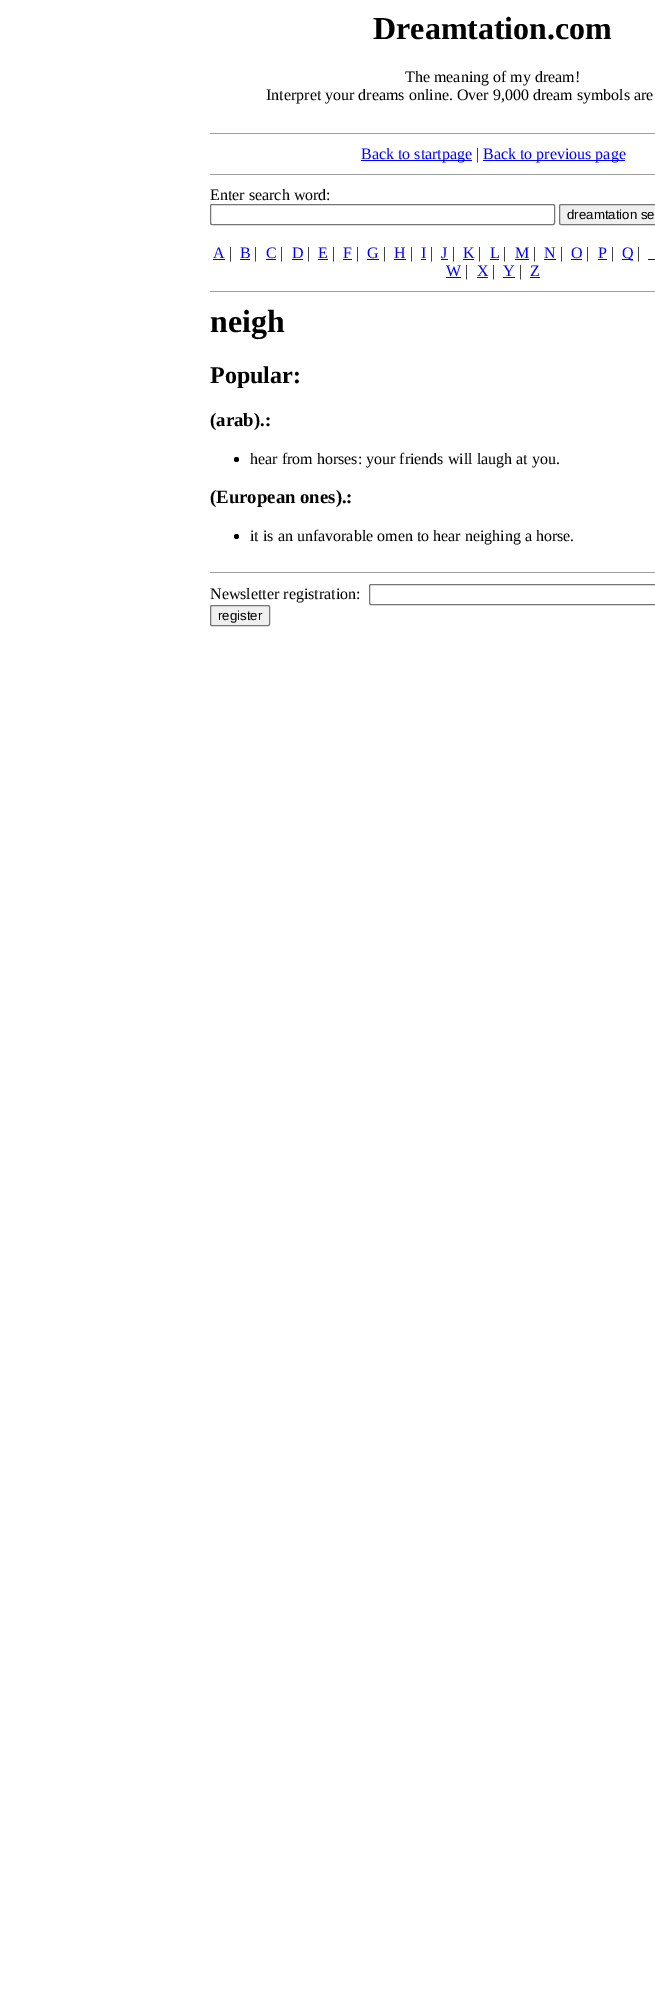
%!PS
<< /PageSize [655 2011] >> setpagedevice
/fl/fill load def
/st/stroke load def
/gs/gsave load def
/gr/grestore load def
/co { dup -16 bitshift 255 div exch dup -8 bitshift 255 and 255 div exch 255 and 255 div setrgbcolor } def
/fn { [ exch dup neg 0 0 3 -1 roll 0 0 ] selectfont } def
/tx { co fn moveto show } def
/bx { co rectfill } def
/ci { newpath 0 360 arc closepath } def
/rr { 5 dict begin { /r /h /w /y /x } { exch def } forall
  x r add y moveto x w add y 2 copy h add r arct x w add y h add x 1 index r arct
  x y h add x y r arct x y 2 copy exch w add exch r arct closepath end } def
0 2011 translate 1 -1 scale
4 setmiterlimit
0 0 655 2011 16#FFFFFF bx
210 133 445 1 16#9F9F9F bx
361 160 111 1 16#0000FF bx
483 160 142 1 16#0000FF bx
210 174 445 1 16#9F9F9F bx
16#767676 co
210.5 204.5 344 20 1.5 rr st
16#EFEFEF co
559.5 204.5 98 20 1.5 rr gs fl gr
16#767676 co
st
213 259 12 1 16#0000FF bx
240 259 10 1 16#0000FF bx
266 259 10 1 16#0000FF bx
292 259 11 1 16#0000FF bx
318 259 10 1 16#0000FF bx
343 259 9 1 16#0000FF bx
367 259 12 1 16#0000FF bx
394 259 12 1 16#0000FF bx
421 259 5 1 16#0000FF bx
441 259 7 1 16#0000FF bx
463 259 11 1 16#0000FF bx
490 259 9 1 16#0000FF bx
515 259 14 1 16#0000FF bx
544 259 12 1 16#0000FF bx
571 259 11 1 16#0000FF bx
598 259 9 1 16#0000FF bx
622 259 11 1 16#0000FF bx
648 259 7 1 16#0000FF bx
446 277 15 1 16#0000FF bx
477 277 11 1 16#0000FF bx
503 277 12 1 16#0000FF bx
530 277 10 1 16#0000FF bx
210 291 445 1 16#9F9F9F bx
16#000000 co
236.5 459.5 2.5 ci fl
236.5 536.5 2.5 ci fl
210 572 445 1 16#9F9F9F bx
16#767676 co
369.5 584.5 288 20 1.5 rr st
16#EFEFEF co
210.5 605.5 59 20 1.5 rr gs fl gr
16#767676 co
st
(Dreamtation.com) 373 39 /LiberationSerif-Bold 32 16#000000 tx
(The meaning of my dream!) 405 82 /LiberationSerif-Regular 16 16#000000 tx
(Interpret your dreams online. Over 9,000 dream symbols are) 266 100 /LiberationSerif-Regular 16 16#000000 tx
(Back to startpage) 361 159 /LiberationSerif-Regular 16 16#0000FF tx
(|) 476 159 /LiberationSerif-Regular 16 16#000000 tx
(Back to previous page) 483 159 /LiberationSerif-Regular 16 16#0000FF tx
(Enter search word:) 210 200 /LiberationSerif-Regular 16 16#000000 tx
(dreamtation se) 567 219 /LiberationSans-Regular 13.25 16#000000 tx
(A) 213 258 /LiberationSerif-Regular 16 16#0000FF tx
(|) 229 258 /LiberationSerif-Regular 16 16#000000 tx
(B) 240 258 /LiberationSerif-Regular 16 16#0000FF tx
(|) 254 258 /LiberationSerif-Regular 16 16#000000 tx
(C) 266 258 /LiberationSerif-Regular 16 16#0000FF tx
(|) 280 258 /LiberationSerif-Regular 16 16#000000 tx
(D) 292 258 /LiberationSerif-Regular 16 16#0000FF tx
(|) 307 258 /LiberationSerif-Regular 16 16#000000 tx
(E) 318 258 /LiberationSerif-Regular 16 16#0000FF tx
(|) 332 258 /LiberationSerif-Regular 16 16#000000 tx
(F) 343 258 /LiberationSerif-Regular 16 16#0000FF tx
(|) 356 258 /LiberationSerif-Regular 16 16#000000 tx
(G) 367 258 /LiberationSerif-Regular 16 16#0000FF tx
(|) 383 258 /LiberationSerif-Regular 16 16#000000 tx
(H) 394 258 /LiberationSerif-Regular 16 16#0000FF tx
(|) 410 258 /LiberationSerif-Regular 16 16#000000 tx
(I) 421 258 /LiberationSerif-Regular 16 16#0000FF tx
(|) 430 258 /LiberationSerif-Regular 16 16#000000 tx
(J) 441 258 /LiberationSerif-Regular 16 16#0000FF tx
(|) 452 258 /LiberationSerif-Regular 16 16#000000 tx
(K) 463 258 /LiberationSerif-Regular 16 16#0000FF tx
(|) 478 258 /LiberationSerif-Regular 16 16#000000 tx
(L) 490 258 /LiberationSerif-Regular 16 16#0000FF tx
(|) 503 258 /LiberationSerif-Regular 16 16#000000 tx
(M) 515 258 /LiberationSerif-Regular 16 16#0000FF tx
(|) 533 258 /LiberationSerif-Regular 16 16#000000 tx
(N) 544 258 /LiberationSerif-Regular 16 16#0000FF tx
(|) 560 258 /LiberationSerif-Regular 16 16#000000 tx
(O) 571 258 /LiberationSerif-Regular 16 16#0000FF tx
(|) 586 258 /LiberationSerif-Regular 16 16#000000 tx
(P) 598 258 /LiberationSerif-Regular 16 16#0000FF tx
(|) 611 258 /LiberationSerif-Regular 16 16#000000 tx
(Q) 622 258 /LiberationSerif-Regular 16 16#0000FF tx
(|) 637 258 /LiberationSerif-Regular 16 16#000000 tx
(W) 446 276 /LiberationSerif-Regular 16 16#0000FF tx
(|) 465 276 /LiberationSerif-Regular 16 16#000000 tx
(X) 477 276 /LiberationSerif-Regular 16 16#0000FF tx
(|) 492 276 /LiberationSerif-Regular 16 16#000000 tx
(Y) 503 276 /LiberationSerif-Regular 16 16#0000FF tx
(|) 519 276 /LiberationSerif-Regular 16 16#000000 tx
(Z) 530 276 /LiberationSerif-Regular 16 16#0000FF tx
(neigh) 210 332 /LiberationSerif-Bold 32 16#000000 tx
(Popular:) 210 383 /LiberationSerif-Bold 24 16#000000 tx
(\(arab\).:) 210 426 /LiberationSerif-Bold 18.75 16#000000 tx
(hear from horses: your friends will laugh at you.) 250 464 /LiberationSerif-Regular 16 16#000000 tx
(\(European ones\).:) 210 503 /LiberationSerif-Bold 18.75 16#000000 tx
(it is an unfavorable omen to hear neighing a horse.) 250 541 /LiberationSerif-Regular 16 16#000000 tx
(Newsletter registration:) 210 599 /LiberationSerif-Regular 16 16#000000 tx
(register) 218 620 /LiberationSans-Regular 13.25 16#000000 tx
showpage
